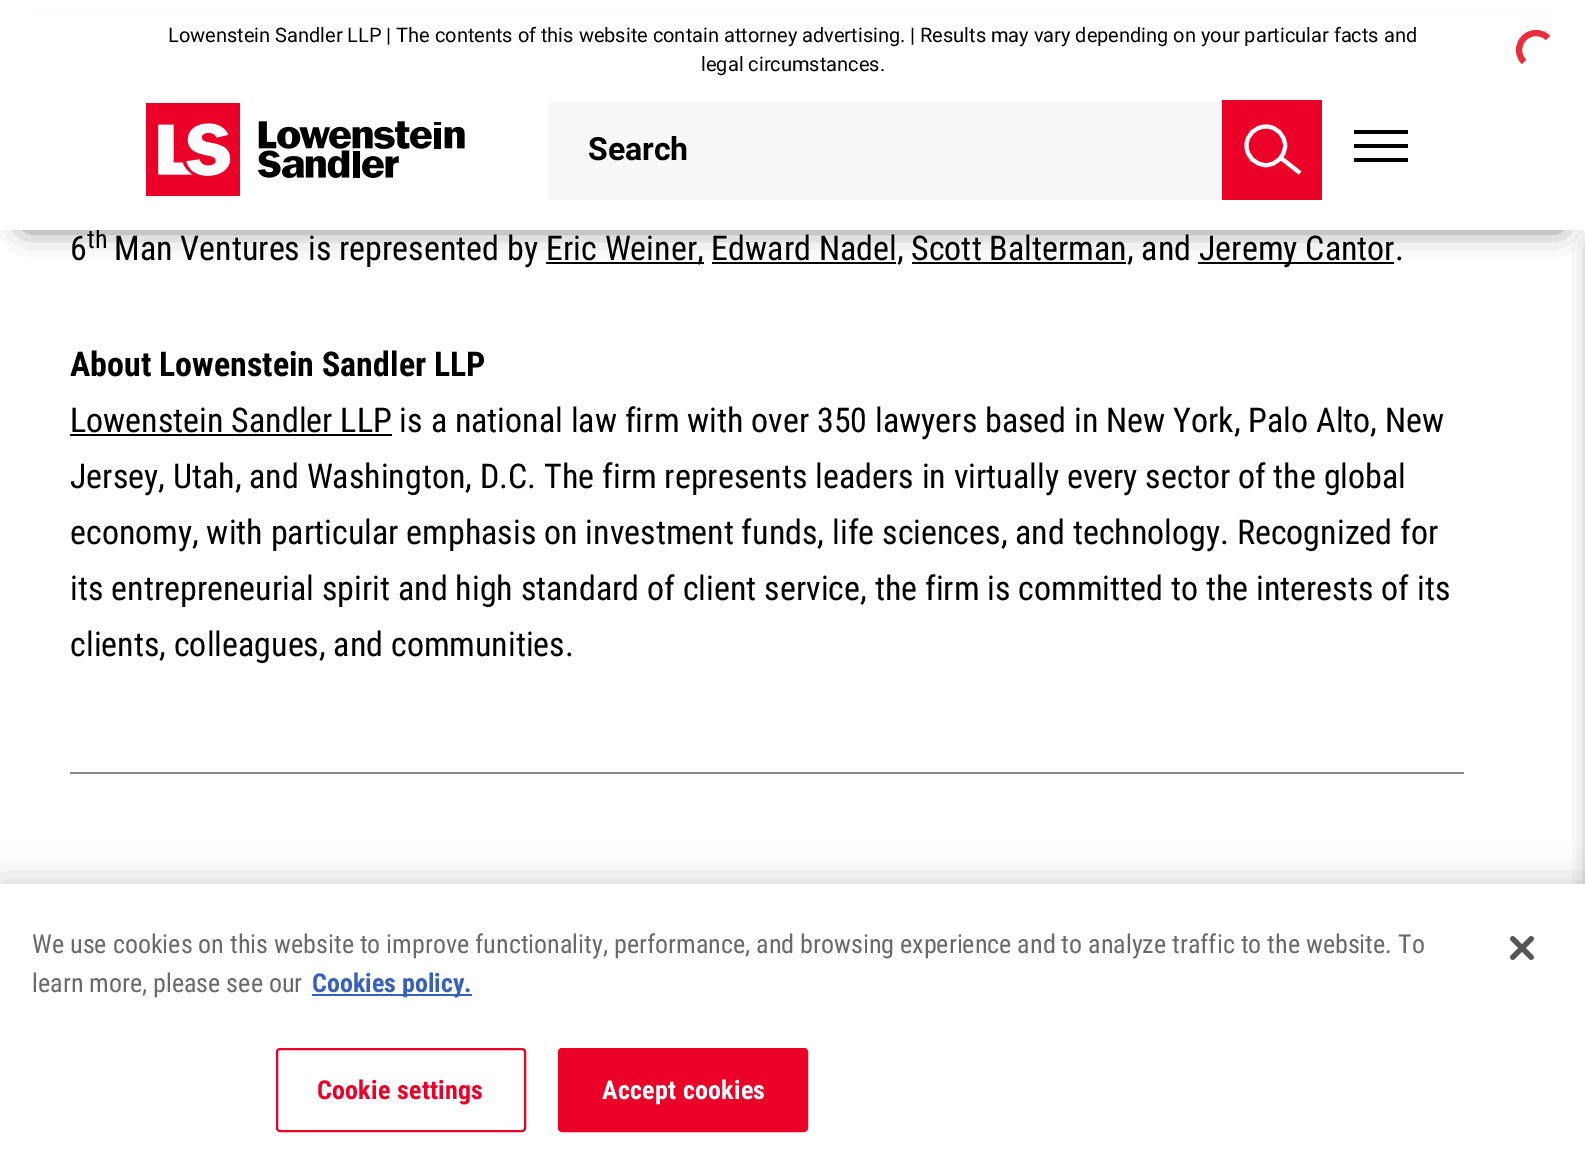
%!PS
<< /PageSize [1585 1152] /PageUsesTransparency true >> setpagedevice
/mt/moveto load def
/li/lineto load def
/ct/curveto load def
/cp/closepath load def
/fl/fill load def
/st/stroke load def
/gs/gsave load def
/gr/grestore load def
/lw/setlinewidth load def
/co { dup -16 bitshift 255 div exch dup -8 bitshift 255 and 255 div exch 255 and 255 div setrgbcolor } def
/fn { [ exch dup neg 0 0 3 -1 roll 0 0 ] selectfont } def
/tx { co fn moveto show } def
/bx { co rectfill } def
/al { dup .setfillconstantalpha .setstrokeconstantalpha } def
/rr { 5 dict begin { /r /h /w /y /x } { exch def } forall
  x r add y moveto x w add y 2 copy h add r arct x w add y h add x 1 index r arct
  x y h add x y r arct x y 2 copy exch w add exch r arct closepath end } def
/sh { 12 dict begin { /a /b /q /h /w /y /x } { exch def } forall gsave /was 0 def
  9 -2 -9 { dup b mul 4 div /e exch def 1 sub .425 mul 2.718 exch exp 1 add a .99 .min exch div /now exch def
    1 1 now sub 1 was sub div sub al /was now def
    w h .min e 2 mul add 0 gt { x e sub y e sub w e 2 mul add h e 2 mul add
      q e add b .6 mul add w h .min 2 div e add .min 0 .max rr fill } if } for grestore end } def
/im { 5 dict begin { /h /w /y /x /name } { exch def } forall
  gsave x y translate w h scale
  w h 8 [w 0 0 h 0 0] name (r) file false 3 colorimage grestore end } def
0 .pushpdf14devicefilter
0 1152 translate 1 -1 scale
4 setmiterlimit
0 0 1585 1152 16#FFFFFF bx
546 262 158 2 16#000000 bx
1198 262 196 2 16#000000 bx
712 262 184 2 16#000000 bx
912 262 214 2 16#000000 bx
26 46 1534 178 0 15 .75 sh
70 772 1394 2 16#888888 bx
70 434 322 2 16#000000 bx
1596 246 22 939 0 11 .75 sh
0 884 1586 268 0 18 .2 sh
0 884 1585 268 16#FFFFFF bx
312 994 160 2 16#3860BE bx
16#EB0028 co
2 lw
277 1049 248 82 3 rr st
559 1049 248 82 3 rr gs fl gr
st
(media/2.raw) 1510 936 24 24 im
(6) 70 260 /RobotoCondensed-Regular 34 16#000000 tx
(th) 87 248 /RobotoCondensed-Regular 26 16#000000 tx
0 13 1585 217 16#FFFFFF bx
(media/1.raw) 146 103 319 93 im
1354 158 54 4 16#000000 bx
1354 130 54 4 16#000000 bx
1354 144 54 4 16#000000 bx
548 102 674 98 16#F7F7F7 bx
(Search) 588 160 /Roboto-Bold 32 16#000000 tx
1222 100 100 100 16#EB0028 bx
16#FFFFFF co
4 lw
1266 165 mt 1276.5 165 1285 156.5 1285 145.5 ct 1285 135 1276.5 126.5 1266 126.5 ct 1255 126.5 1246.5 135 1246.5 145.5 ct 1246.5 156.5 1255 165 1266 165 ct cp 1281 158 mt 1300 173 li st
(legal circumstances.) 701 71 /Roboto-Regular 20 16#000000 tx
(Lowenstein Sandler LLP | The contents of this website contain attorney advertising. | Results may vary depending on your particular facts and) 168 42 /Roboto-Regular 20 16#000000 tx
(Man Ventures is represented by) 114 260 /RobotoCondensed-Regular 34 16#000000 tx
(Eric Weiner, Edward Nadel, Scott Balterman, and) 546 260 /RobotoCondensed-Regular 34 16#000000 tx
(Jeremy Cantor.) 1199 260 /RobotoCondensed-Regular 34 16#000000 tx
(About Lowenstein Sandler LLP) 70 376 /RobotoCondensed-Bold 34 16#000000 tx
(Lowenstein Sandler LLP is a national law firm with over 350 lawyers based in New York, Palo Alto, New) 70 432 /RobotoCondensed-Regular 34 16#000000 tx
(Jersey, Utah, and Washington, D.C. The firm represents leaders in virtually every sector of the global) 70 488 /RobotoCondensed-Regular 34 16#000000 tx
(economy, with particular emphasis on investment funds, life sciences, and technology. Recognized for) 70 544 /RobotoCondensed-Regular 34 16#000000 tx
(its entrepreneurial spirit and high standard of client service, the firm is committed to the interests of its) 70 600 /RobotoCondensed-Regular 34 16#000000 tx
(clients, colleagues, and communities.) 70 656 /RobotoCondensed-Regular 34 16#000000 tx
16#EC2C3A co
6 lw
1524 62 mt 1521.5 59.5 1520 56.5 1519.5 53.5 ct 1516 37 1536 26 1548 38 ct st
(We use cookies on this website to improve functionality, performance, and browsing experience and to analyze traffic to the website. To) 32 953 /RobotoCondensed-Regular 26.02 16#696969 tx
(learn more, please see our) 32 992 /RobotoCondensed-Regular 26.02 16#696969 tx
(Cookies policy.) 312 992 /RobotoCondensed-Bold 26.02 16#3860BE tx
16#EB0028 co
317 1099 mt .25 0 (Cookie settings) ashow
16#FFFFFF co
602 1099 mt .25 0 (Accept cookies) ashow
.poppdf14devicefilter showpage
